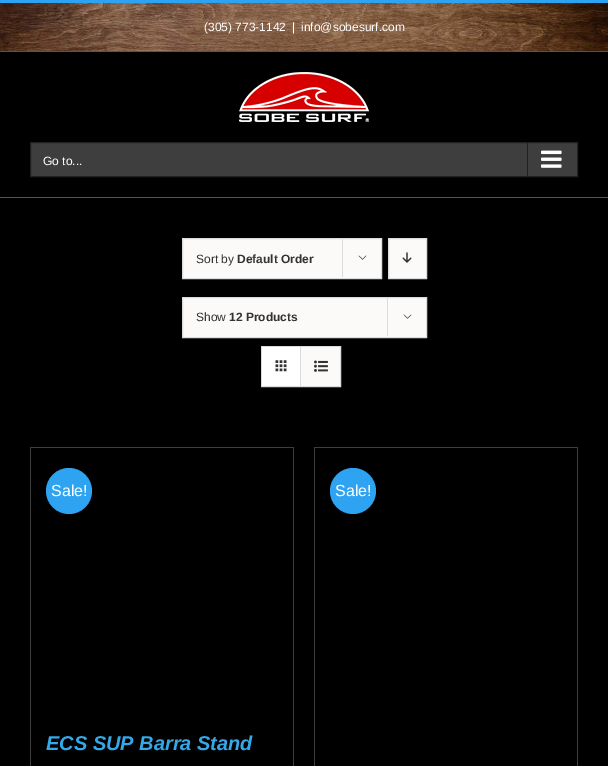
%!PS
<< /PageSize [608 766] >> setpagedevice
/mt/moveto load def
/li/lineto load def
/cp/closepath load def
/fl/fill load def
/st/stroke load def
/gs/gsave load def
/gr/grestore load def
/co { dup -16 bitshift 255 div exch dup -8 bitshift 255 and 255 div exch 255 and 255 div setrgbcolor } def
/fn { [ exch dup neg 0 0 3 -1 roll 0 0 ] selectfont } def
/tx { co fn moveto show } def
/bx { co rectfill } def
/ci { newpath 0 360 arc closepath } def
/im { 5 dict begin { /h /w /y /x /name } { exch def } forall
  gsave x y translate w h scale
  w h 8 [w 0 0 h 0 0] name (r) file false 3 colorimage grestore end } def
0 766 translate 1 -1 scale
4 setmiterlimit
0 0 608 766 16#000000 bx
(media/1.raw) 0 3 608 48 im
0 0 608 3 16#2EA3F2 bx
0 51 608 1 16#555555 bx
0 197 608 1 16#555555 bx
(media/2.raw) 239 72 130 50 im
16#3E3E3E co
30.5 142.5 mt 577.5 142.5 li 577.5 176.5 li 30.5 176.5 li cp gs fl gr
16#212122 co
st
527 143 1 33 16#212122 bx
(media/3.raw) 541 150 21 18 im
16#FBFAF9 co
182.5 238.5 mt 381.5 238.5 li 381.5 278.5 li 182.5 278.5 li cp gs fl gr
16#DBDBDB co
st
342 238 1 39 16#DBDBDB bx
(media/4.raw) 358 255 9 5 im
16#FBFAF9 co
388.5 238.5 mt 426.5 238.5 li 426.5 278.5 li 388.5 278.5 li cp gs fl gr
16#DBDBDB co
st
(media/5.raw) 402 252 10 11 im
16#FBFAF9 co
182.5 297.5 mt 426.5 297.5 li 426.5 337.5 li 182.5 337.5 li cp gs fl gr
16#DBDBDB co
st
387 297 1 39 16#DBDBDB bx
(media/4.raw) 403 314 9 5 im
261.5 346.5 79 40 rectstroke
262 347 38 39 16#FFFFFF bx
300 347 1 39 16#DBDBDB bx
(media/6.raw) 275 360 12 12 im
301 347 39 39 16#FBFAF9 bx
(media/7.raw) 314 360 14 12 im
30 447 264 1 16#3E3E3E bx
293 447 1 319 16#3E3E3E bx
30 447 1 319 16#3E3E3E bx
16#2EA3F2 co
69 491 23 ci fl
314 447 264 1 16#3E3E3E bx
577 447 1 319 16#3E3E3E bx
314 447 1 319 16#3E3E3E bx
16#2EA3F2 co
353 491 23 ci fl
(\(305\) 773-1142) 204 31 /LiberationSans-Regular 12 16#FFFFFF tx
(|) 292 31 /LiberationSans-Regular 12 16#FFFFFF tx
(info@sobesurf.com) 301 31 /LiberationSans-Regular 12 16#FFFFFF tx
(Go to...) 43 165 /LiberationSans-Regular 12 16#FFFFFF tx
(Sort by) 196 263 /LiberationSans-Regular 12 16#333333 tx
(Default Order) 237 263 /LiberationSans-Bold 12 16#333333 tx
(Show) 196 321 /LiberationSans-Regular 12 16#333333 tx
(12 Products) 229 321 /LiberationSans-Bold 12 16#333333 tx
(Sale!) 51 496 /LiberationSans-Regular 16 16#FFFFFF tx
(ECS SUP Barra Stand) 46 750 /LiberationSans-BoldItalic 20 16#35A9E8 tx
(Sale!) 335 496 /LiberationSans-Regular 16 16#FFFFFF tx
showpage
